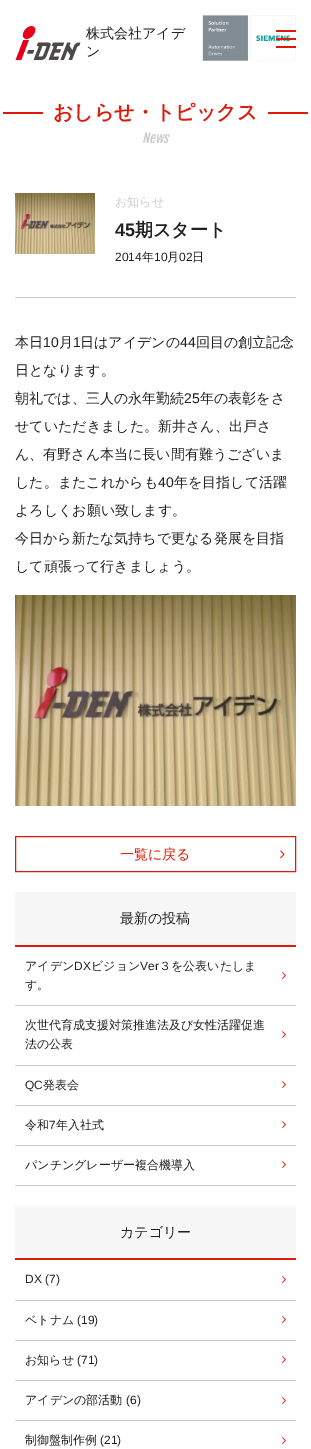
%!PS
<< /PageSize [311 1449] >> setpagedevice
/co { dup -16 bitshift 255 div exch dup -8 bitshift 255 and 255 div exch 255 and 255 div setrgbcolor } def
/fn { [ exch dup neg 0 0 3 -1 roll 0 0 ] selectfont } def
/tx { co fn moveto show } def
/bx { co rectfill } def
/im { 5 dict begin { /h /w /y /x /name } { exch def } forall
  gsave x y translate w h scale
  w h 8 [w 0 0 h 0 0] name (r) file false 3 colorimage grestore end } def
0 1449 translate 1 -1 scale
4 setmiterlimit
0 0 311 1449 16#FFFFFF bx
(media/1.raw) 15 26 66 34 im
(media/2.raw) 202 15 94 46 im
276 30 20 2 16#DF1A0B bx
276 38 20 2 16#DF1A0B bx
276 46 20 2 16#DF1A0B bx
3 112 40 2 16#DF1A0B bx
268 112 40 2 16#DF1A0B bx
(media/3.raw) 15 193 80 61 im
15 297 281 1 16#CBCBCB bx
(media/4.raw) 15 595 281 211 im
16#DF1A0B co
15.5 836.5 280 35 rectstroke
(media/5.raw) 280 850 5 9 im
15 892 281 53 16#F7F7F7 bx
15 945 281 2 16#DF1A0B bx
15 1005 281 1 16#CBCBCB bx
(media/6.raw) 282 972 4 7 im
15 1065 281 1 16#CBCBCB bx
(media/6.raw) 282 1031 4 7 im
15 1105 281 1 16#CBCBCB bx
(media/6.raw) 282 1081 4 7 im
15 1145 281 1 16#CBCBCB bx
(media/6.raw) 282 1121 4 7 im
15 1185 281 1 16#CBCBCB bx
(media/6.raw) 282 1161 4 7 im
15 1206 281 52 16#F7F7F7 bx
15 1258 281 2 16#DF1A0B bx
15 1300 281 1 16#CBCBCB bx
(media/6.raw) 282 1276 4 7 im
15 1340 281 1 16#CBCBCB bx
(media/6.raw) 282 1316 4 7 im
15 1380 281 1 16#CBCBCB bx
(media/6.raw) 282 1356 4 7 im
15 1420 281 1 16#CBCBCB bx
(media/6.raw) 282 1397 4 7 im
(media/6.raw) 282 1437 4 7 im
(株式会社アイデ) 86 38 /WenQuanYiZenHei-Medium 14 16#212121 tx
(ン) 86 56 /WenQuanYiZenHei-Medium 14 16#212121 tx
(おしらせ・トピックス) 53 119 /WenQuanYiZenHei-Bold 20 16#DF1A0B tx
(News) 142 143 /FjallaOne-Italic 13 16#CBCBCB tx
(お知らせ) 115 206 /WenQuanYiZenHei-Medium 12 16#CBCBCB tx
(45) 115 236 /LiberationSans-Bold 18 16#212121 tx
(期スタート) 135 236 /WenQuanYiZenHei-Bold 18 16#212121 tx
(2014) 115 261 /LiberationSans-Regular 12 16#212121 tx
(年) 142 261 /WenQuanYiZenHei-Medium 12 16#212121 tx
(10) 154 261 /LiberationSans-Regular 12 16#212121 tx
(月) 167 261 /WenQuanYiZenHei-Medium 12 16#212121 tx
(02) 179 261 /LiberationSans-Regular 12 16#212121 tx
(日) 192 261 /WenQuanYiZenHei-Medium 12 16#212121 tx
(本日) 15 347 /WenQuanYiZenHei-Medium 14 16#212121 tx
(10) 43 347 /LiberationSans-Regular 14 16#212121 tx
(月) 59 347 /WenQuanYiZenHei-Medium 14 16#212121 tx
(1) 73 347 /LiberationSans-Regular 14 16#212121 tx
(日はアイデンの) 80 347 /WenQuanYiZenHei-Medium 14 16#212121 tx
(44) 180 347 /LiberationSans-Regular 14 16#212121 tx
(回目の創立記念) 196 347 /WenQuanYiZenHei-Medium 14 16#212121 tx
(日となります。) 15 375 /WenQuanYiZenHei-Medium 14 16#212121 tx
(朝礼では、三人の永年勤続) 15 403 /WenQuanYiZenHei-Medium 14 16#212121 tx
(25) 184 403 /LiberationSans-Regular 14 16#212121 tx
(年の表彰をさ) 200 403 /WenQuanYiZenHei-Medium 14 16#212121 tx
(せていただきました。新井さん、出戸さ) 15 431 /WenQuanYiZenHei-Medium 14 16#212121 tx
(ん、有野さん本当に長い間有難うございま) 15 459 /WenQuanYiZenHei-Medium 14 16#212121 tx
(した。またこれからも) 15 487 /WenQuanYiZenHei-Medium 14 16#212121 tx
(40) 158 487 /LiberationSans-Regular 14 16#212121 tx
(年を目指して活躍) 174 487 /WenQuanYiZenHei-Medium 14 16#212121 tx
(よろしくお願い致します。) 15 515 /WenQuanYiZenHei-Medium 14 16#212121 tx
(今日から新たな気持ちで更なる発展を目指) 15 543 /WenQuanYiZenHei-Medium 14 16#212121 tx
(して頑張って行きましょう。) 15 571 /WenQuanYiZenHei-Medium 14 16#212121 tx
(一覧に戻る) 120 859 /WenQuanYiZenHei-Medium 14 16#DF1A0B tx
(最新の投稿) 120 923 /WenQuanYiZenHei-Medium 14 16#212121 tx
(アイデン) 25 970 /WenQuanYiZenHei-Medium 12 16#212121 tx
(DX) 74 970 /LiberationSans-Regular 12 16#212121 tx
(ビジョン) 91 970 /WenQuanYiZenHei-Medium 12 16#212121 tx
(Ver) 140 970 /LiberationSans-Regular 12 16#212121 tx
(３を公表いたしま) 159 970 /WenQuanYiZenHei-Medium 12 16#212121 tx
(す。) 25 989 /WenQuanYiZenHei-Medium 12 16#212121 tx
(次世代育成支援対策推進法及び女性活躍促進) 25 1029 /WenQuanYiZenHei-Medium 12 16#212121 tx
(法の公表) 25 1048 /WenQuanYiZenHei-Medium 12 16#212121 tx
(QC) 25 1089 /LiberationSans-Regular 12 16#212121 tx
(発表会) 43 1089 /WenQuanYiZenHei-Medium 12 16#212121 tx
(令和) 25 1129 /WenQuanYiZenHei-Medium 12 16#212121 tx
(7) 49 1129 /LiberationSans-Regular 12 16#212121 tx
(年入社式) 56 1129 /WenQuanYiZenHei-Medium 12 16#212121 tx
(パンチングレーザー複合機導入) 25 1169 /WenQuanYiZenHei-Medium 12 16#212121 tx
(カテゴリー) 120 1237 /WenQuanYiZenHei-Medium 14 16#212121 tx
(DX \(7\)) 25 1283 /LiberationSans-Regular 12 16#212121 tx
(ベトナム) 25 1324 /WenQuanYiZenHei-Medium 12 16#212121 tx
(\(19\)) 77 1324 /LiberationSans-Regular 12 16#212121 tx
(お知らせ) 25 1364 /WenQuanYiZenHei-Medium 12 16#212121 tx
(\(71\)) 77 1364 /LiberationSans-Regular 12 16#212121 tx
(アイデンの部活動) 25 1404 /WenQuanYiZenHei-Medium 12 16#212121 tx
(\(6\)) 126 1404 /LiberationSans-Regular 12 16#212121 tx
(制御盤制作例) 25 1444 /WenQuanYiZenHei-Medium 12 16#212121 tx
(\(21\)) 100 1444 /LiberationSans-Regular 12 16#212121 tx
showpage
